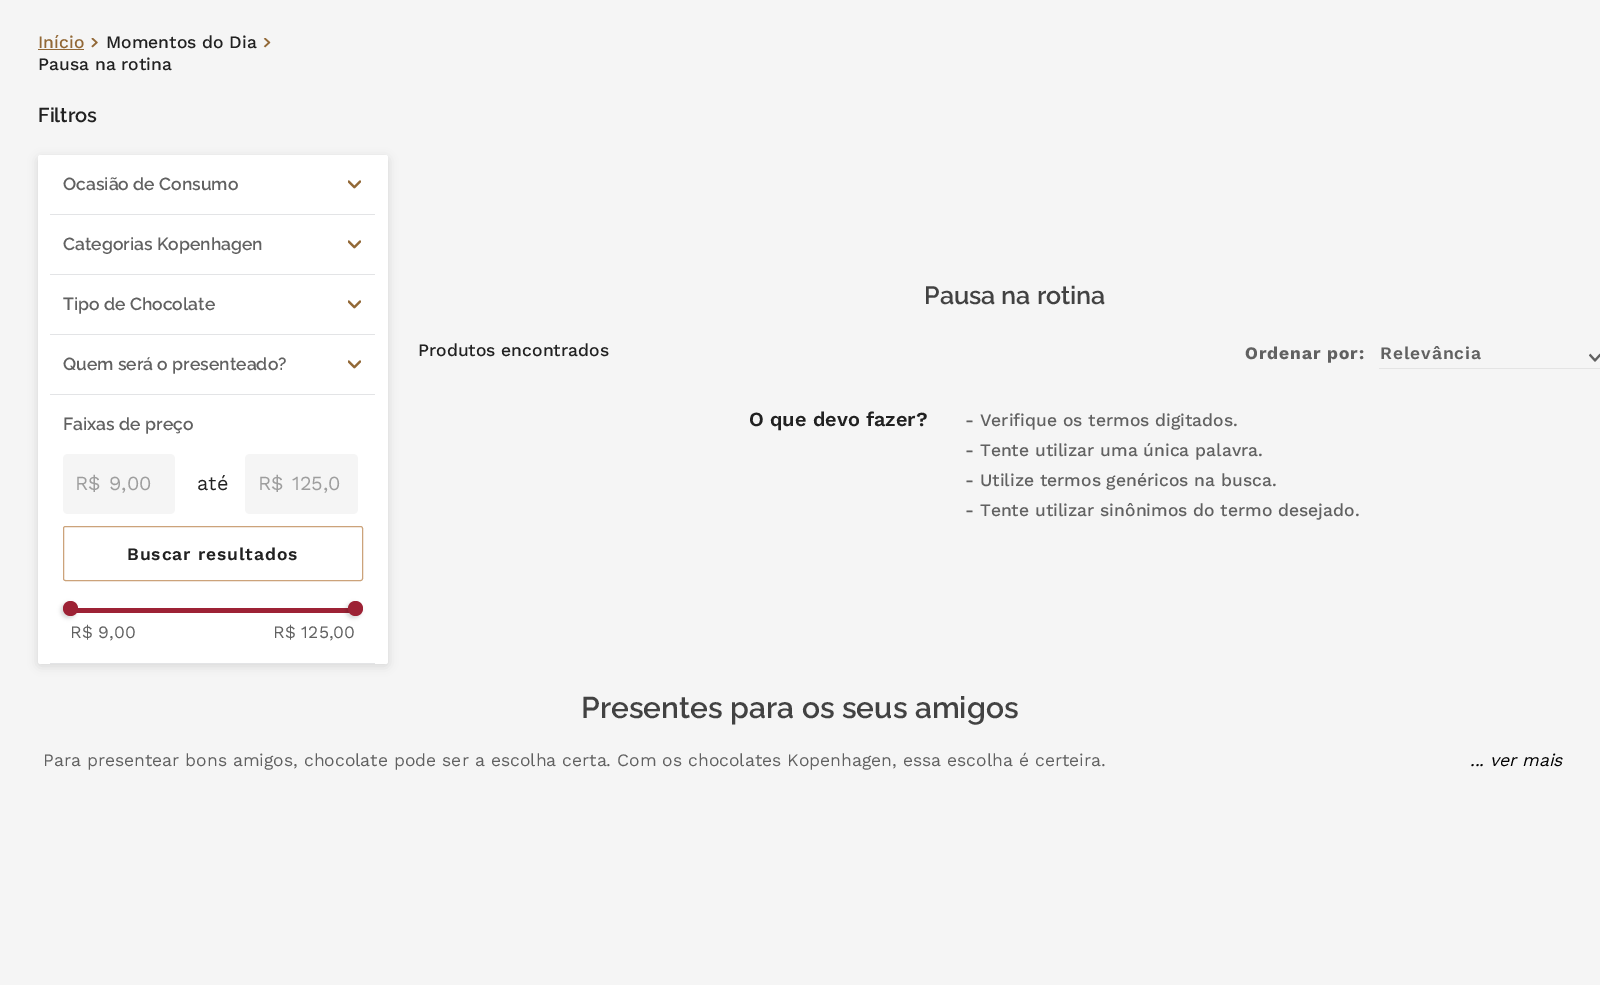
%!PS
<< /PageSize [1600 985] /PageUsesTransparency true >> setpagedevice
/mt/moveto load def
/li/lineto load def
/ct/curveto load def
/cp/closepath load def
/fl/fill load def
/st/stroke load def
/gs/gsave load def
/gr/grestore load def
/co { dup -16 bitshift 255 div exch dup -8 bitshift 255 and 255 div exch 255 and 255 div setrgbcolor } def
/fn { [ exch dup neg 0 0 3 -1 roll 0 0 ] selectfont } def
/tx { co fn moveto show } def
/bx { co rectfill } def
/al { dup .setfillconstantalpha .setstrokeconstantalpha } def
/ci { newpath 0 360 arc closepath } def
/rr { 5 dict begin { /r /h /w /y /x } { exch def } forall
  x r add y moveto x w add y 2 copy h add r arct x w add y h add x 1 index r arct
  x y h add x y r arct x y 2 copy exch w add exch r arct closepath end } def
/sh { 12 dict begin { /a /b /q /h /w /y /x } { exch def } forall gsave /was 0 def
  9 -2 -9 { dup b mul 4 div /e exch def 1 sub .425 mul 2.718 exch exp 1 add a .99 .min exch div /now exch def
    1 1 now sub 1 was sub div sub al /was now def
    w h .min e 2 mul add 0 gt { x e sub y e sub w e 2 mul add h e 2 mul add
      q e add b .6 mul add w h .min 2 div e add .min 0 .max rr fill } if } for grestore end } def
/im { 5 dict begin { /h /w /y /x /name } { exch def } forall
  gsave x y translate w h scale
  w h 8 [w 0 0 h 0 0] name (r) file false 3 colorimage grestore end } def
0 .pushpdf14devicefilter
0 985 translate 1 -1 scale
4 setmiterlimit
0 0 1600 985 16#F5F5F5 bx
38 49 46 1 16#926836 bx
(media/1.raw) 91 38 7 10 im
(media/2.raw) 263 38 8 10 im
16#000000 co
38 158 350 508 2.5 5 .12 sh
16#FFFFFF co
38 155 350 509 2.5 rr fl
50 214 325 1 16#E3E4E6 bx
(media/3.raw) 348 180 13 9 im
50 274 325 1 16#E3E4E6 bx
(media/3.raw) 348 240 13 9 im
50 334 325 1 16#E3E4E6 bx
(media/3.raw) 348 300 13 9 im
50 394 325 1 16#E3E4E6 bx
(media/3.raw) 348 360 13 9 im
50 663 325 1 16#E3E4E6 bx
16#F5F5F5 co
68 454 mt 108 454 li 108 514 li 68 514 li 65 514 63 512 63 509 ct 63 459 li 63 456 65 454 68 454 ct cp fl
108 454 mt 170 454 li 173 454 175 456 175 459 ct 175 509 li 175 512 173 514 170 514 ct 108 514 li cp fl
250 454 mt 290 454 li 290 514 li 250 514 li 247 514 245 512 245 509 ct 245 459 li 245 456 247 454 250 454 ct cp fl
290 454 mt 353 454 li 356 454 358 456 358 459 ct 358 509 li 358 512 356 514 353 514 ct 290 514 li cp fl
16#CCA37A co
63.5 526.5 299 54 2 rr st
70 608 285 5 16#9D2235 bx
16#000000 co
61 603 15 15 7.5 2 .15 sh
16#9D2235 co
70.5 608.5 7.5 ci fl
16#000000 co
346 603 15 15 7.5 2 .15 sh
16#9D2235 co
355.5 608.5 7.5 ci fl
(media/4.raw) 1589 353 11 9 im
1379 368 221 1 16#E4E4E4 bx
(Início) 38 48 /WorkSans-Medium 17.5 16#926836 tx
(Momentos do Dia) 106 48 /WorkSans-Medium 17.5 16#212121 tx
(Pausa na rotina) 38 70 /WorkSans-Medium 17.5 16#212121 tx
(Filtros) 38 122 /Raleway-Thin 20 16#212121 tx
(Ocasião de Consumo) 63 190 /Raleway-Thin 17.5 16#616161 tx
(Categorias Kopenhagen) 63 250 /Raleway-Thin 17.5 16#616161 tx
gs
63 295 152 19 rectclip
(Tipo de Chocolate) 63 310 /Raleway-Thin 17.5 16#616161 tx
gr
(Quem será o presenteado?) 63 370 /Raleway-Thin 17.5 16#616161 tx
(Faixas de preço) 63 430 /Raleway-Thin 17.5 16#616161 tx
(R$) 75 490 /WorkSans-Regular 20 16#9E9E9E tx
(9,00) 109 490 /WorkSans-Regular 20 16#9E9E9E tx
(até) 197 490 /WorkSans-Regular 20 16#212121 tx
(R$) 258 490 /WorkSans-Regular 20 16#9E9E9E tx
(125,0) 292 490 /WorkSans-Regular 20 16#9E9E9E tx
/WorkSans-SemiBold 17.5 fn
16#212121 co
127 560 mt .9 0 (Buscar resultados) ashow
(R$ 9,00) 70 638 /WorkSans-Regular 17.5 16#616161 tx
(R$ 125,00) 273 638 /WorkSans-Regular 17.5 16#616161 tx
(Pausa na rotina) 924 304 /Raleway-Thin 25 16#424242 tx
(Produtos encontrados) 418 356 /WorkSans-Medium 17.5 16#212121 tx
/WorkSans-Bold 17.5 fn
16#616161 co
1245 359 mt .9 0 (Ordenar por:) ashow
/WorkSans-SemiBold 17.5 fn
1380 359 mt .9 0 (Relevância) ashow
(O que devo fazer?) 749 426 /WorkSans-SemiBold 20 16#212121 tx
(- Verifique os termos digitados.) 965 426 /WorkSans-Medium 17.5 16#616161 tx
(- Tente utilizar uma única palavra.) 965 456 /WorkSans-Medium 17.5 16#616161 tx
(- Utilize termos genéricos na busca.) 965 486 /WorkSans-Medium 17.5 16#616161 tx
(- Tente utilizar sinônimos do termo desejado.) 965 516 /WorkSans-Medium 17.5 16#616161 tx
(Presentes para os seus amigos) 581 718 /Raleway-Thin 30 16#424242 tx
(Para presentear bons amigos, chocolate pode ser a escolha certa. Com os chocolates Kopenhagen, essa escolha é certeira.) 43 766 /WorkSans-Regular 17.5 16#616161 tx
(... ver mais) 1470 766 /WorkSans-Italic 17.5 16#000000 tx
.poppdf14devicefilter showpage
